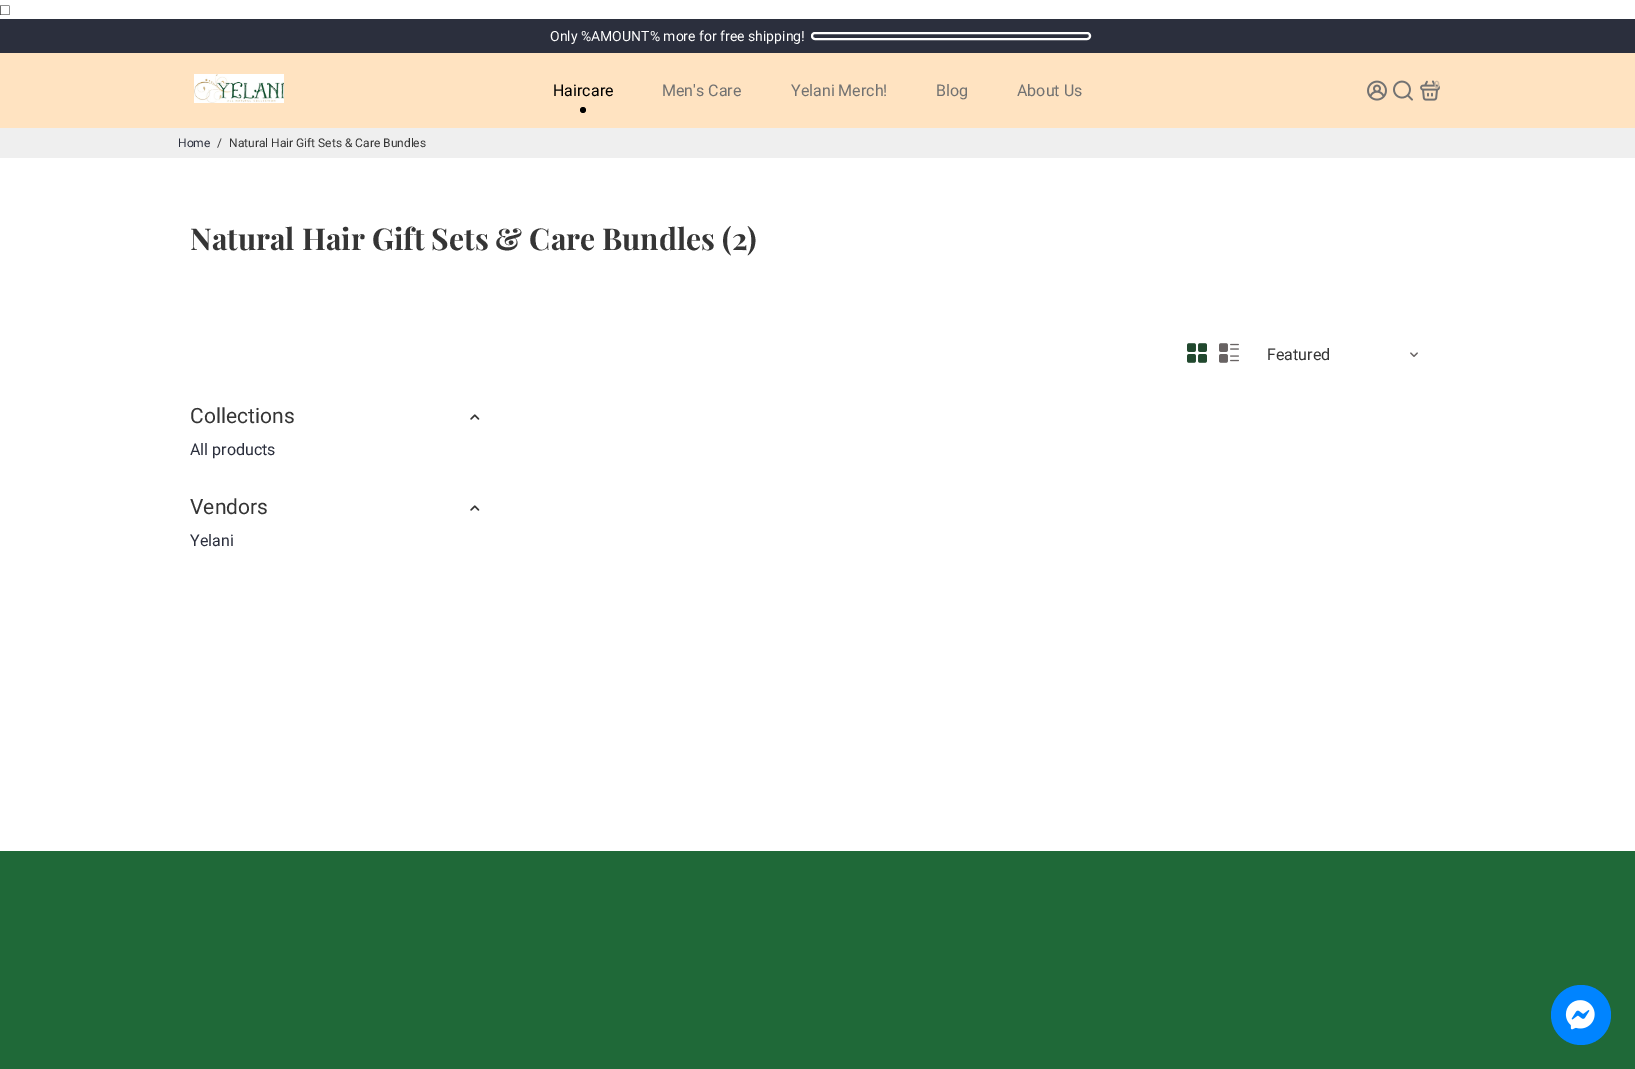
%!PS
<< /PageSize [1635 1069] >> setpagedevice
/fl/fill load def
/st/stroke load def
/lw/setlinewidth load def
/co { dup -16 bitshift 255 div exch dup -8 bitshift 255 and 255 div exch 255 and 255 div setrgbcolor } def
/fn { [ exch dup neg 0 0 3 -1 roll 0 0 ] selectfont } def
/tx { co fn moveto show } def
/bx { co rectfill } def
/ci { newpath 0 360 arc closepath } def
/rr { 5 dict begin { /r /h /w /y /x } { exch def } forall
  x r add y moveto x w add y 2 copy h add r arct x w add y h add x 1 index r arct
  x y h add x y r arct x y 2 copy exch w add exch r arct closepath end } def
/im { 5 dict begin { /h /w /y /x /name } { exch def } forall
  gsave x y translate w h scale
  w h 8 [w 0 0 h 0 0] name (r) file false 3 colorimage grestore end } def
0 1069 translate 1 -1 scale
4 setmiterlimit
0 0 1635 1069 16#FFFFFF bx
0 19 1635 34 16#2B2F3D bx
16#FFFFFF co
2 lw
812 33 278 6 3 rr st
0 53 1635 75 16#FFE3C1 bx
(media/1.raw) 194 74 90 29 im
16#000000 co
583 110 3 ci fl
(media/2.raw) 1367 80 20 21 im
(media/3.raw) 1393 80 20 21 im
(media/4.raw) 1420 80 20 21 im
0 128 1635 30 16#EFEFEF bx
(media/5.raw) 1187 343 20 20 im
(media/6.raw) 1219 343 20 20 im
(media/7.raw) 1410 352 8 5 im
(media/8.raw) 470 414 10 6 im
(media/8.raw) 470 505 10 6 im
0 851 1635 218 16#1F6938 bx
16#0084FF co
1581 1015 30 ci fl
(media/9.raw) 1565 1000 30 30 im
(□) 0 15 /LiberationSans-Regular 16 16#353535 tx
(Only %AMOUNT% more for free shipping!) 550 41 /Roboto-Regular 14 16#FFFFFF tx
(Haircare) 553 96 /Roboto-Regular 16 16#000000 tx
(Men's Care) 662 96 /Roboto-Regular 16 16#727272 tx
(Yelani Merch!) 791 96 /Roboto-Regular 16 16#727272 tx
(Blog) 936 96 /Roboto-Regular 16 16#727272 tx
(About Us) 1017 96 /Roboto-Regular 16 16#727272 tx
(0) 1434 88 /Roboto-Bold 10 16#CCBAA5 tx
(Home) 178 147 /Roboto-Regular 12 16#2B2F3D tx
(/) 217 147 /Roboto-Regular 12 16#353535 tx
(Natural Hair Gift Sets & Care Bundles) 229 147 /Roboto-Regular 12 16#353535 tx
(Natural Hair Gift Sets & Care Bundles \(2\)) 190 250 /PlayfairDisplay-Bold 30 16#353535 tx
(Featured) 1267 360 /Roboto-Regular 16 16#353535 tx
(Collections) 190 423 /Roboto-Regular 21 16#353535 tx
(All products) 190 455 /Roboto-Regular 16 16#2B2F3D tx
(Vendors) 190 514 /Roboto-Regular 21 16#353535 tx
(Yelani) 190 546 /Roboto-Regular 16 16#2B2F3D tx
showpage
